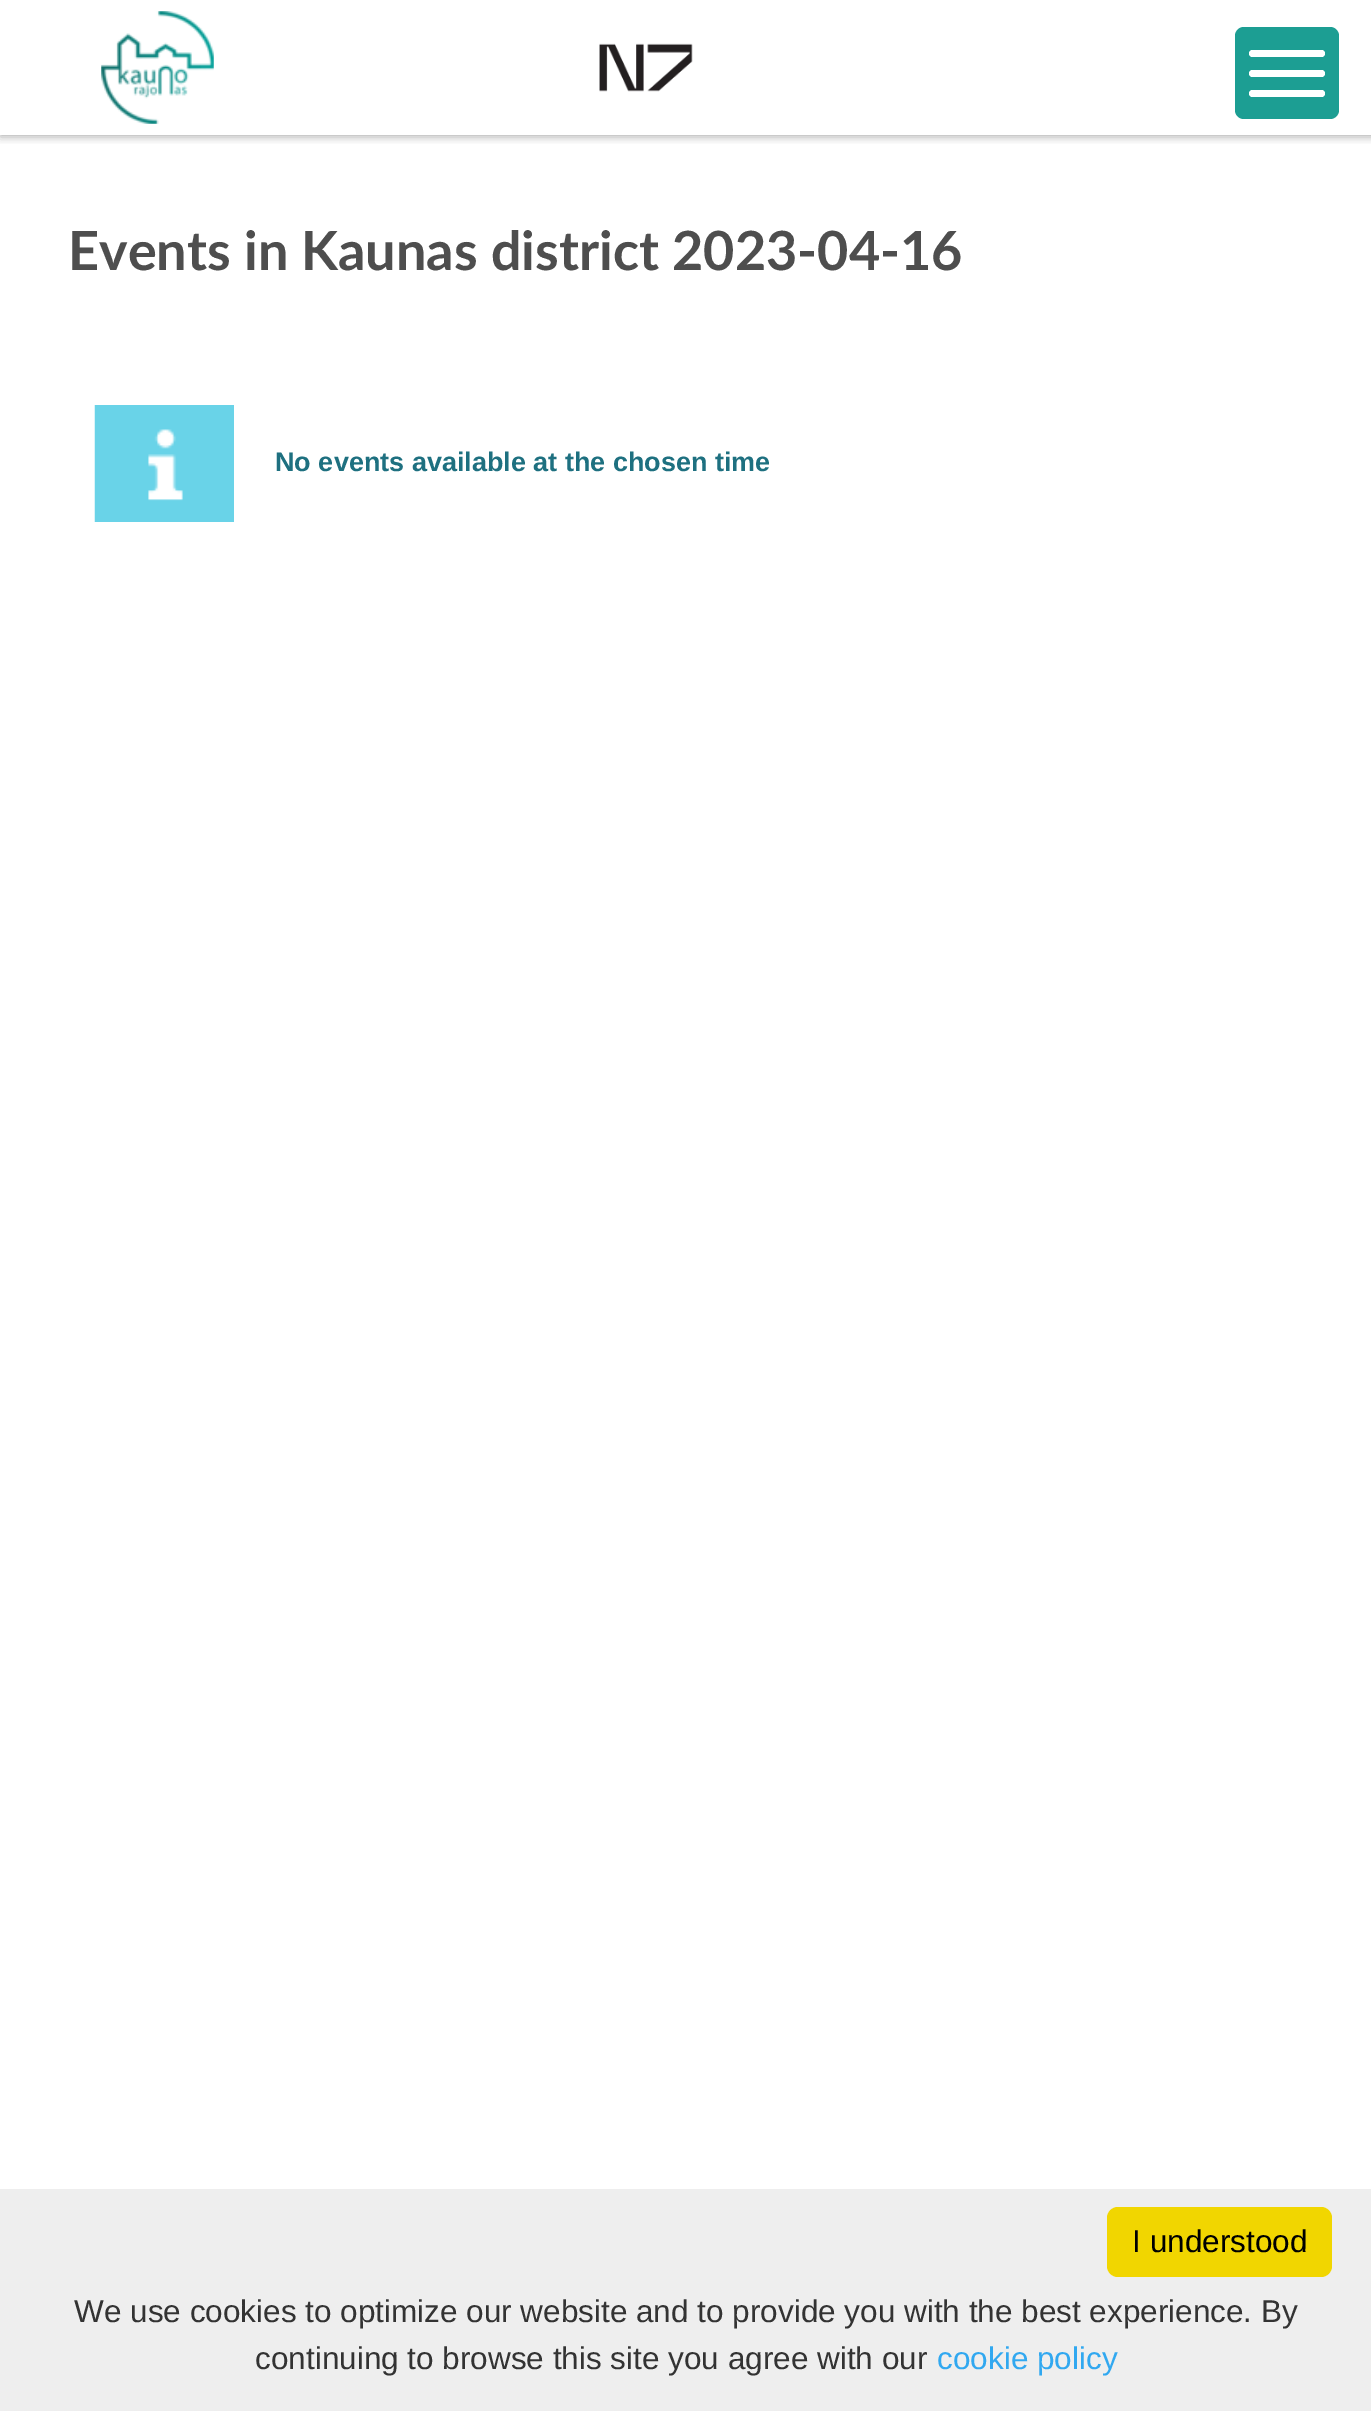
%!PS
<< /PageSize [1371 2411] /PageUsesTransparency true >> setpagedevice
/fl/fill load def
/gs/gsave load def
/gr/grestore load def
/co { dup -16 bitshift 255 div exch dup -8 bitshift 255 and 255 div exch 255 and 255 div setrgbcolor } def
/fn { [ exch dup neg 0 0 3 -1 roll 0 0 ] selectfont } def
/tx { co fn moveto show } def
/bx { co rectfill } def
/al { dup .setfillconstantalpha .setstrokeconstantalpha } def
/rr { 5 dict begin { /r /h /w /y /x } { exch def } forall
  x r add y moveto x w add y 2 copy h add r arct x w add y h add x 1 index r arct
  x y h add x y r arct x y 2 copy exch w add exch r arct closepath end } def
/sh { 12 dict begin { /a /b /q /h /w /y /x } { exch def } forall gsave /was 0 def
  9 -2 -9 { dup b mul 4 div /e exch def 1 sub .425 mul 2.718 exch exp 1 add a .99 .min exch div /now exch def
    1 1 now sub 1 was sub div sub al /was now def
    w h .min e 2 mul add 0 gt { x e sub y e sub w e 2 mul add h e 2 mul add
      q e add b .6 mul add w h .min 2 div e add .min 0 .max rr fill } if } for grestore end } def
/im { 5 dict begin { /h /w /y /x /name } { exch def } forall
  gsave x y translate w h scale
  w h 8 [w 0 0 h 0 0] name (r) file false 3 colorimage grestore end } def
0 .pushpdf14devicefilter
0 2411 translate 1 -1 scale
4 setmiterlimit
0 0 1371 2411 16#FFFFFF bx
gs
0 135 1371 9 rectclip
16#000000 co
0 2 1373 135 0 4.5 .3 sh
gr
(media/1.raw) 101 11 113 113 im
(media/2.raw) 599 43 94 49 im
16#1C9E93 co
1235 27 104 92 9 rr fl
16#FFFFFF co
1249 50 76 7 3.5 rr fl
1249 70 76 7 3.5 rr fl
1249 90 76 7 3.5 rr fl
(media/3.raw) 94 405 140 117 im
0 2189 1371 222 16#EEEEEE bx
16#F1D600 co
1107 2207 225 70 11 rr fl
(Events in Kaunas district 2023-04-16) 68 270 /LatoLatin-Bold 54 16#4E4E4E tx
(No events available at the chosen time) 275 471 /LiberationSans-Bold 27 16#1E7080 tx
(I understood) 1132 2252 /LiberationSans-Regular 31.5 16#000000 tx
(We use cookies to optimize our website and to provide you with the best experience. By) 74 2322 /LiberationSans-Regular 31.5 16#333333 tx
(continuing to browse this site you agree with our) 255 2369 /LiberationSans-Regular 31.5 16#333333 tx
(cookie policy) 937 2369 /LiberationSans-Regular 31.5 16#31A8F0 tx
.poppdf14devicefilter showpage
